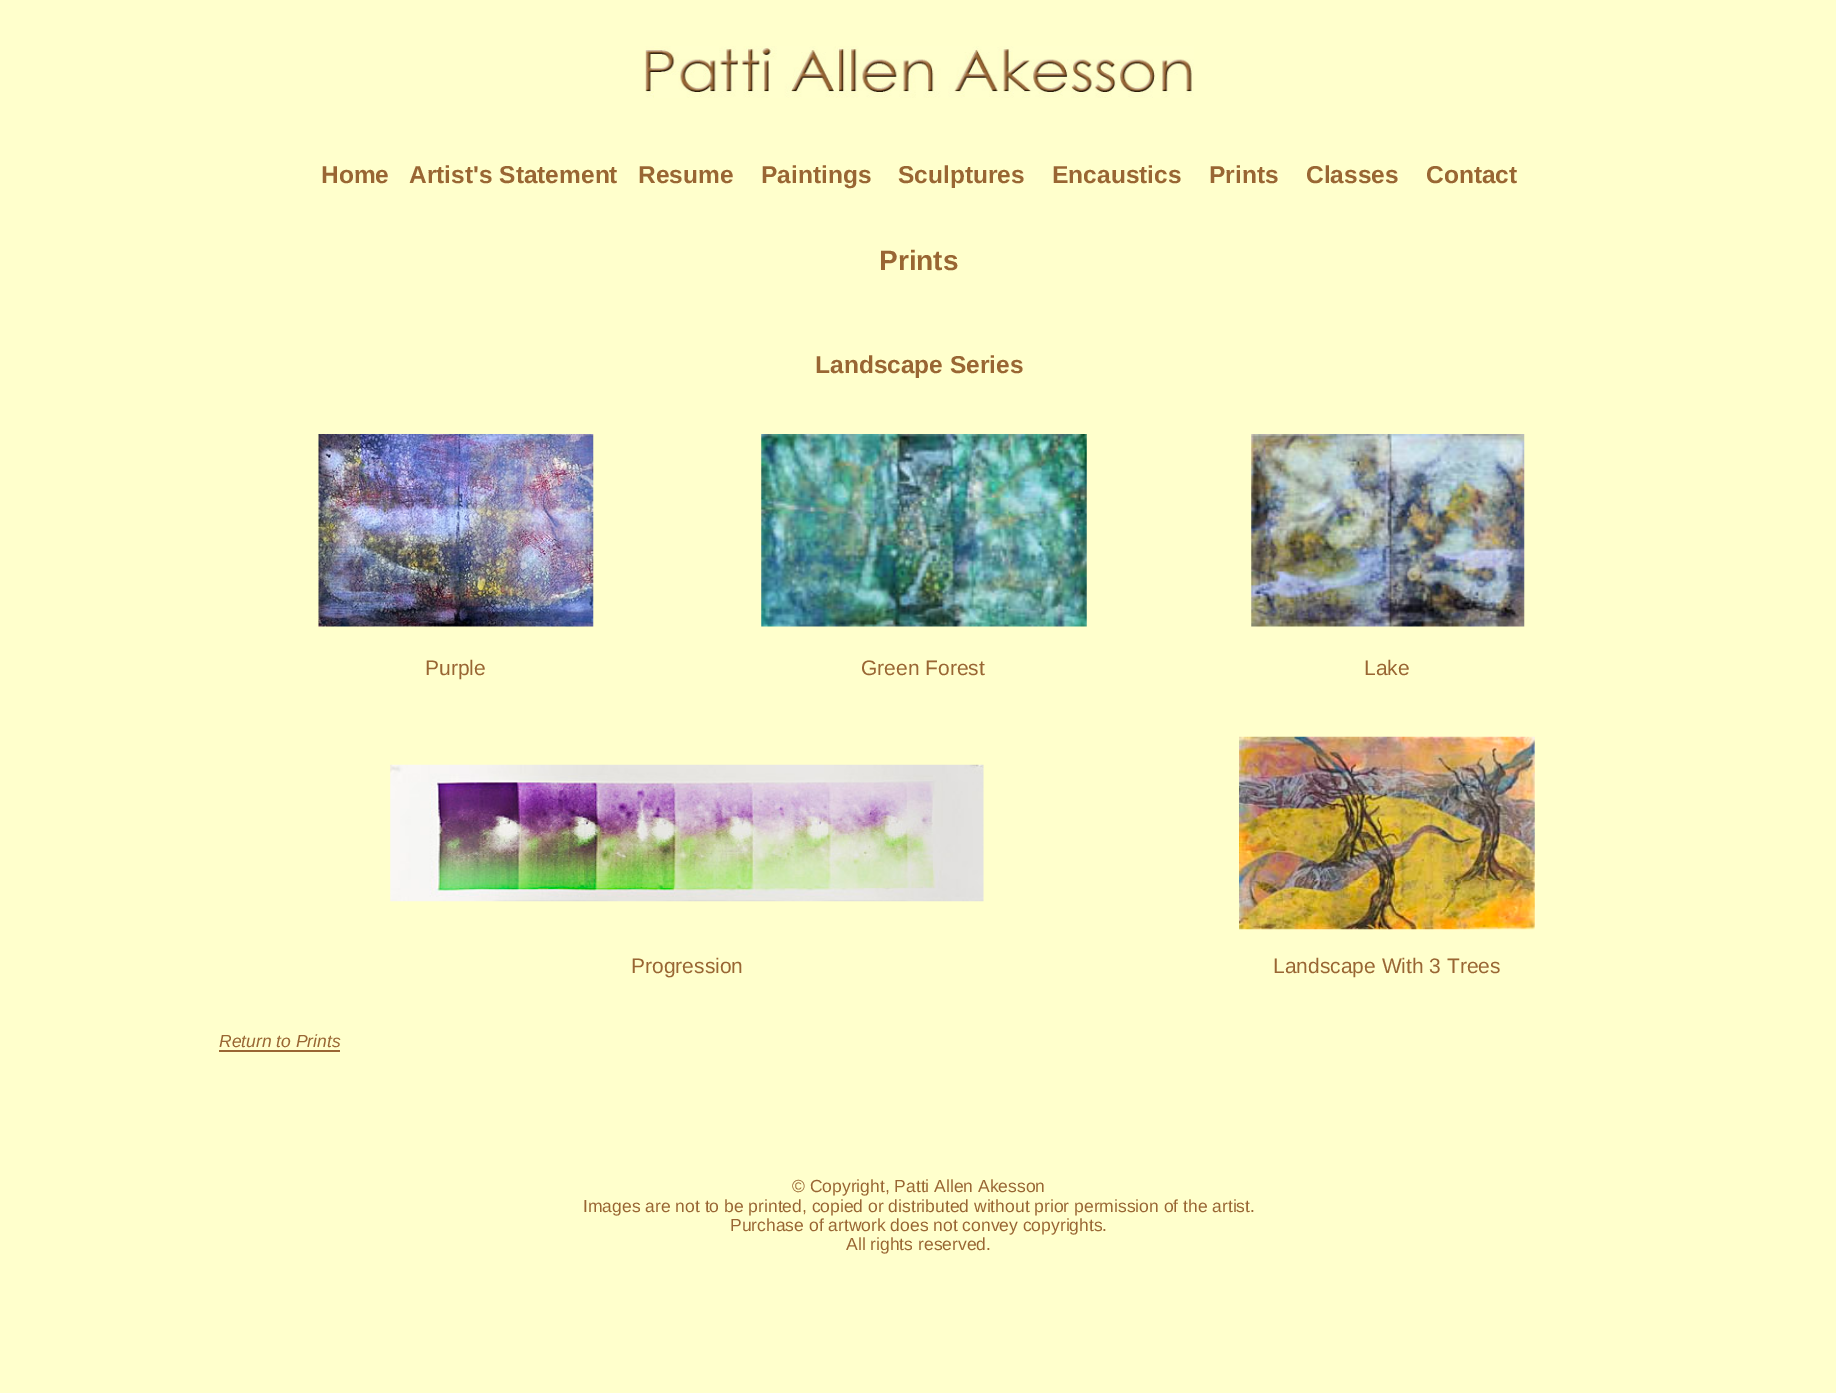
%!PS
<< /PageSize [1836 1393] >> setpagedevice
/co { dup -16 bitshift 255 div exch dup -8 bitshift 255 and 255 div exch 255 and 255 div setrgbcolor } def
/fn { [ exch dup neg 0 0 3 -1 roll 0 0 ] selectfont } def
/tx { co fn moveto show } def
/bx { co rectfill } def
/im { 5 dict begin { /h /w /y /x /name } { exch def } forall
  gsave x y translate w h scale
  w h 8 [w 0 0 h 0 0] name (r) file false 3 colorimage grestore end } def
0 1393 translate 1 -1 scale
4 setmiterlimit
0 0 1836 1393 16#FFFFCC bx
(media/1.raw) 645 46 549 52 im
(media/2.raw) 318 434 276 193 im
(media/3.raw) 761 434 326 193 im
(media/4.raw) 1251 434 274 193 im
(media/5.raw) 390 764 594 138 im
(media/6.raw) 1239 736 296 194 im
219 1050 121 2 16#996633 bx
(Home) 321 183 /LiberationSans-Bold 24.5 16#996633 tx
(Artist's Statement) 409 183 /LiberationSans-Bold 24.5 16#996633 tx
(Resume) 638 183 /LiberationSans-Bold 24.5 16#996633 tx
(Paintings) 761 183 /LiberationSans-Bold 24.5 16#996633 tx
(Sculptures) 898 183 /LiberationSans-Bold 24.5 16#996633 tx
(Encaustics) 1052 183 /LiberationSans-Bold 24.5 16#996633 tx
(Prints) 1209 183 /LiberationSans-Bold 24.5 16#996633 tx
(Classes) 1306 183 /LiberationSans-Bold 24.5 16#996633 tx
(Contact) 1426 183 /LiberationSans-Bold 24.5 16#996633 tx
(Prints) 879 270 /LiberationSans-Bold 28 16#996633 tx
(Landscape Series) 815 373 /LiberationSans-Bold 24.5 16#996633 tx
(Purple) 425 675 /LiberationSans-Regular 21 16#996633 tx
(Green Forest) 861 675 /LiberationSans-Regular 21 16#996633 tx
(Lake) 1364 675 /LiberationSans-Regular 21 16#996633 tx
(Progression) 631 973 /LiberationSans-Regular 21 16#996633 tx
(Landscape With 3 Trees) 1273 973 /LiberationSans-Regular 21 16#996633 tx
(Return to Prints) 219 1047 /LiberationSans-Italic 17.5 16#996633 tx
(© Copyright, Patti Allen Akesson) 792 1192 /LiberationSans-Regular 17.5 16#996633 tx
(Images are not to be printed, copied or distributed without prior permission of the artist.) 583 1212 /LiberationSans-Regular 17.5 16#996633 tx
(Purchase of artwork does not convey copyrights.) 730 1231 /LiberationSans-Regular 17.5 16#996633 tx
(All rights reserved.) 846 1250 /LiberationSans-Regular 17.5 16#996633 tx
showpage
